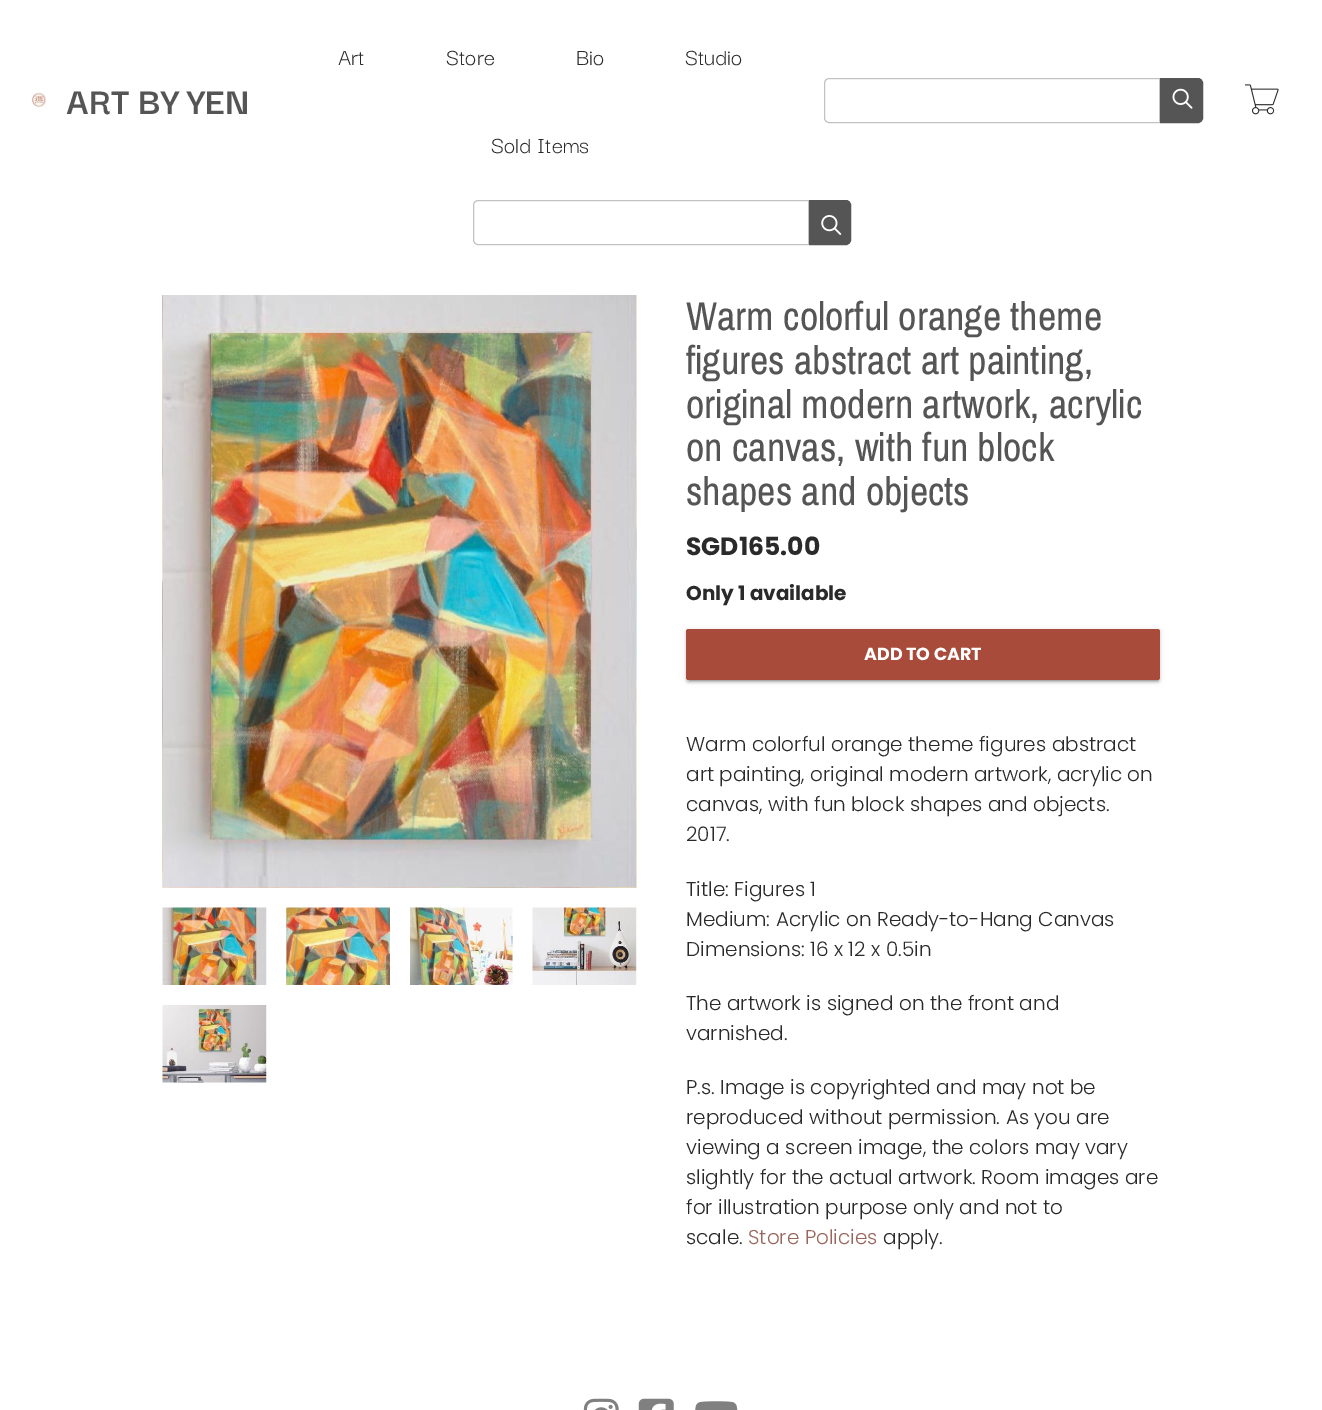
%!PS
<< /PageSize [1322 1410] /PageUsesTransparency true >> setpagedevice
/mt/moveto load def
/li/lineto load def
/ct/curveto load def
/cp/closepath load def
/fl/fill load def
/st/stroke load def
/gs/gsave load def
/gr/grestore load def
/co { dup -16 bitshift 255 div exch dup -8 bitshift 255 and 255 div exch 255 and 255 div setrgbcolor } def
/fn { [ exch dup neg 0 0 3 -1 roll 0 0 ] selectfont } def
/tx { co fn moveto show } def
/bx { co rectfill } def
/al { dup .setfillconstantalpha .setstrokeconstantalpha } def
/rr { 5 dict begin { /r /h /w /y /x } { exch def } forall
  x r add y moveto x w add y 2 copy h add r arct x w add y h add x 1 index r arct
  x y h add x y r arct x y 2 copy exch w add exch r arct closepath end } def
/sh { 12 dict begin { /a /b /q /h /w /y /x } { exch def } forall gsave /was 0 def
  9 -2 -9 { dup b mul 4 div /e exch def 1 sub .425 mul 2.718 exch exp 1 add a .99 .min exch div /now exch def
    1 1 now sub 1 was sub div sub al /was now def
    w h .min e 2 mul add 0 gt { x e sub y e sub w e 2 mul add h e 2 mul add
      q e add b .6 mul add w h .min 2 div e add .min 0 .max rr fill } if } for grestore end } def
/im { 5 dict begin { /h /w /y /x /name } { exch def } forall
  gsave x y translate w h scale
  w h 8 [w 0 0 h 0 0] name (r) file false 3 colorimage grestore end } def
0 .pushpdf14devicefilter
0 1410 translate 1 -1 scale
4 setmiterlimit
0 0 1322 1410 16#FFFFFF bx
(media/1.raw) 31 92 15 16 im
16#C2C2C2 co
829 78.5 mt 1159.5 78.5 li 1159.5 122.5 li 829 122.5 li 826.5 122.5 824.5 120.5 824.5 118 ct 824.5 83 li 824.5 80.5 826.5 78.5 829 78.5 ct cp st
16#555555 co
1160.5 78.5 mt 1198 78.5 li 1200.5 78.5 1202.5 80.5 1202.5 83 ct 1202.5 118 li 1202.5 120.5 1200.5 122.5 1198 122.5 ct 1160.5 122.5 li cp gs fl gr
st
(media/2.raw) 1172 88 21 21 im
(media/3.raw) 1245 84 34 31 im
16#C2C2C2 co
478 200.5 mt 808.5 200.5 li 808.5 244.5 li 478 244.5 li 475.5 244.5 473.5 242.5 473.5 240 ct 473.5 205 li 473.5 202.5 475.5 200.5 478 200.5 ct cp st
16#555555 co
809.5 200.5 mt 846 200.5 li 848.5 200.5 850.5 202.5 850.5 205 ct 850.5 240 li 850.5 242.5 848.5 244.5 846 244.5 ct 809.5 244.5 li cp gs fl gr
st
(media/4.raw) 821 215 21 20 im
(media/5.raw) 162 295 475 593 im
(media/6.raw) 162 295 475 593 im
(media/7.raw) 162 907 105 78 im
(media/8.raw) 286 907 104 78 im
(media/9.raw) 410 907 103 78 im
(media/10.raw) 532 907 105 78 im
(media/11.raw) 162 1005 105 78 im
16#000000 co
686 630 474 51 2.5 3 .12 sh
686 631 474 52 2.5 1 .14 sh
689 635 469 46 0 .5 .2 sh
16#A84B3A co
686 629 474 51 2.5 rr fl
(media/12.raw) 583 1398 36 12 im
(media/13.raw) 638 1398 36 12 im
(media/14.raw) 695 1401 43 9 im
(ART BY YEN) 66 114 /DarkerGrotesque-Bold 40 16#555555 tx
(Art) 338 65 /DarkerGrotesque-Regular 25 16#2A2A2A tx
(Store) 446 65 /DarkerGrotesque-Regular 25 16#2A2A2A tx
(Bio) 576 65 /DarkerGrotesque-Regular 25 16#2A2A2A tx
(Studio) 685 65 /DarkerGrotesque-Regular 25 16#2A2A2A tx
(Sold Items) 491 153 /DarkerGrotesque-Regular 25 16#2A2A2A tx
(Warm colorful orange theme) 686 330 /PragatiNarrow-Regular 43.75 16#555555 tx
(figures abstract art painting,) 686 374 /PragatiNarrow-Regular 43.75 16#555555 tx
(original modern artwork, acrylic) 686 418 /PragatiNarrow-Regular 43.75 16#555555 tx
(on canvas, with fun block) 686 461 /PragatiNarrow-Regular 43.75 16#555555 tx
(shapes and objects) 686 505 /PragatiNarrow-Regular 43.75 16#555555 tx
(SGD165.00) 686 555 /Poppins-Bold 25 16#2A2A2A tx
(Only 1 available) 686 600 /Poppins-Bold 20 16#2A2A2A tx
(ADD TO CART) 864 660 /Poppins-Bold 17.5 16#FFFFFF tx
(Warm colorful orange theme figures abstract) 686 751 /Poppins-Light 20 16#2A2A2A tx
(art painting, original modern artwork, acrylic on) 686 781 /Poppins-Light 20 16#2A2A2A tx
(canvas, with fun block shapes and objects.) 686 811 /Poppins-Light 20 16#2A2A2A tx
(2017.) 686 841 /Poppins-Light 20 16#2A2A2A tx
(Title: Figures 1) 686 896 /Poppins-Light 20 16#2A2A2A tx
(Medium: Acrylic on Ready-to-Hang Canvas) 686 926 /Poppins-Light 20 16#2A2A2A tx
(Dimensions: 16 x 12 x 0.5in) 686 956 /Poppins-Light 20 16#2A2A2A tx
(The artwork is signed on the front and) 686 1010 /Poppins-Light 20 16#2A2A2A tx
(varnished.) 686 1040 /Poppins-Light 20 16#2A2A2A tx
(P.s. Image is copyrighted and may not be) 686 1094 /Poppins-Light 20 16#2A2A2A tx
(reproduced without permission. As you are) 686 1124 /Poppins-Light 20 16#2A2A2A tx
(viewing a screen image, the colors may vary) 686 1154 /Poppins-Light 20 16#2A2A2A tx
(slightly for the actual artwork. Room images are) 686 1184 /Poppins-Light 20 16#2A2A2A tx
(for illustration purpose only and not to) 686 1214 /Poppins-Light 20 16#2A2A2A tx
(scale.) 686 1244 /Poppins-Light 20 16#2A2A2A tx
(Store Policies) 748 1244 /Poppins-Light 20 16#99655C tx
(apply.) 883 1244 /Poppins-Light 20 16#2A2A2A tx
.poppdf14devicefilter showpage
